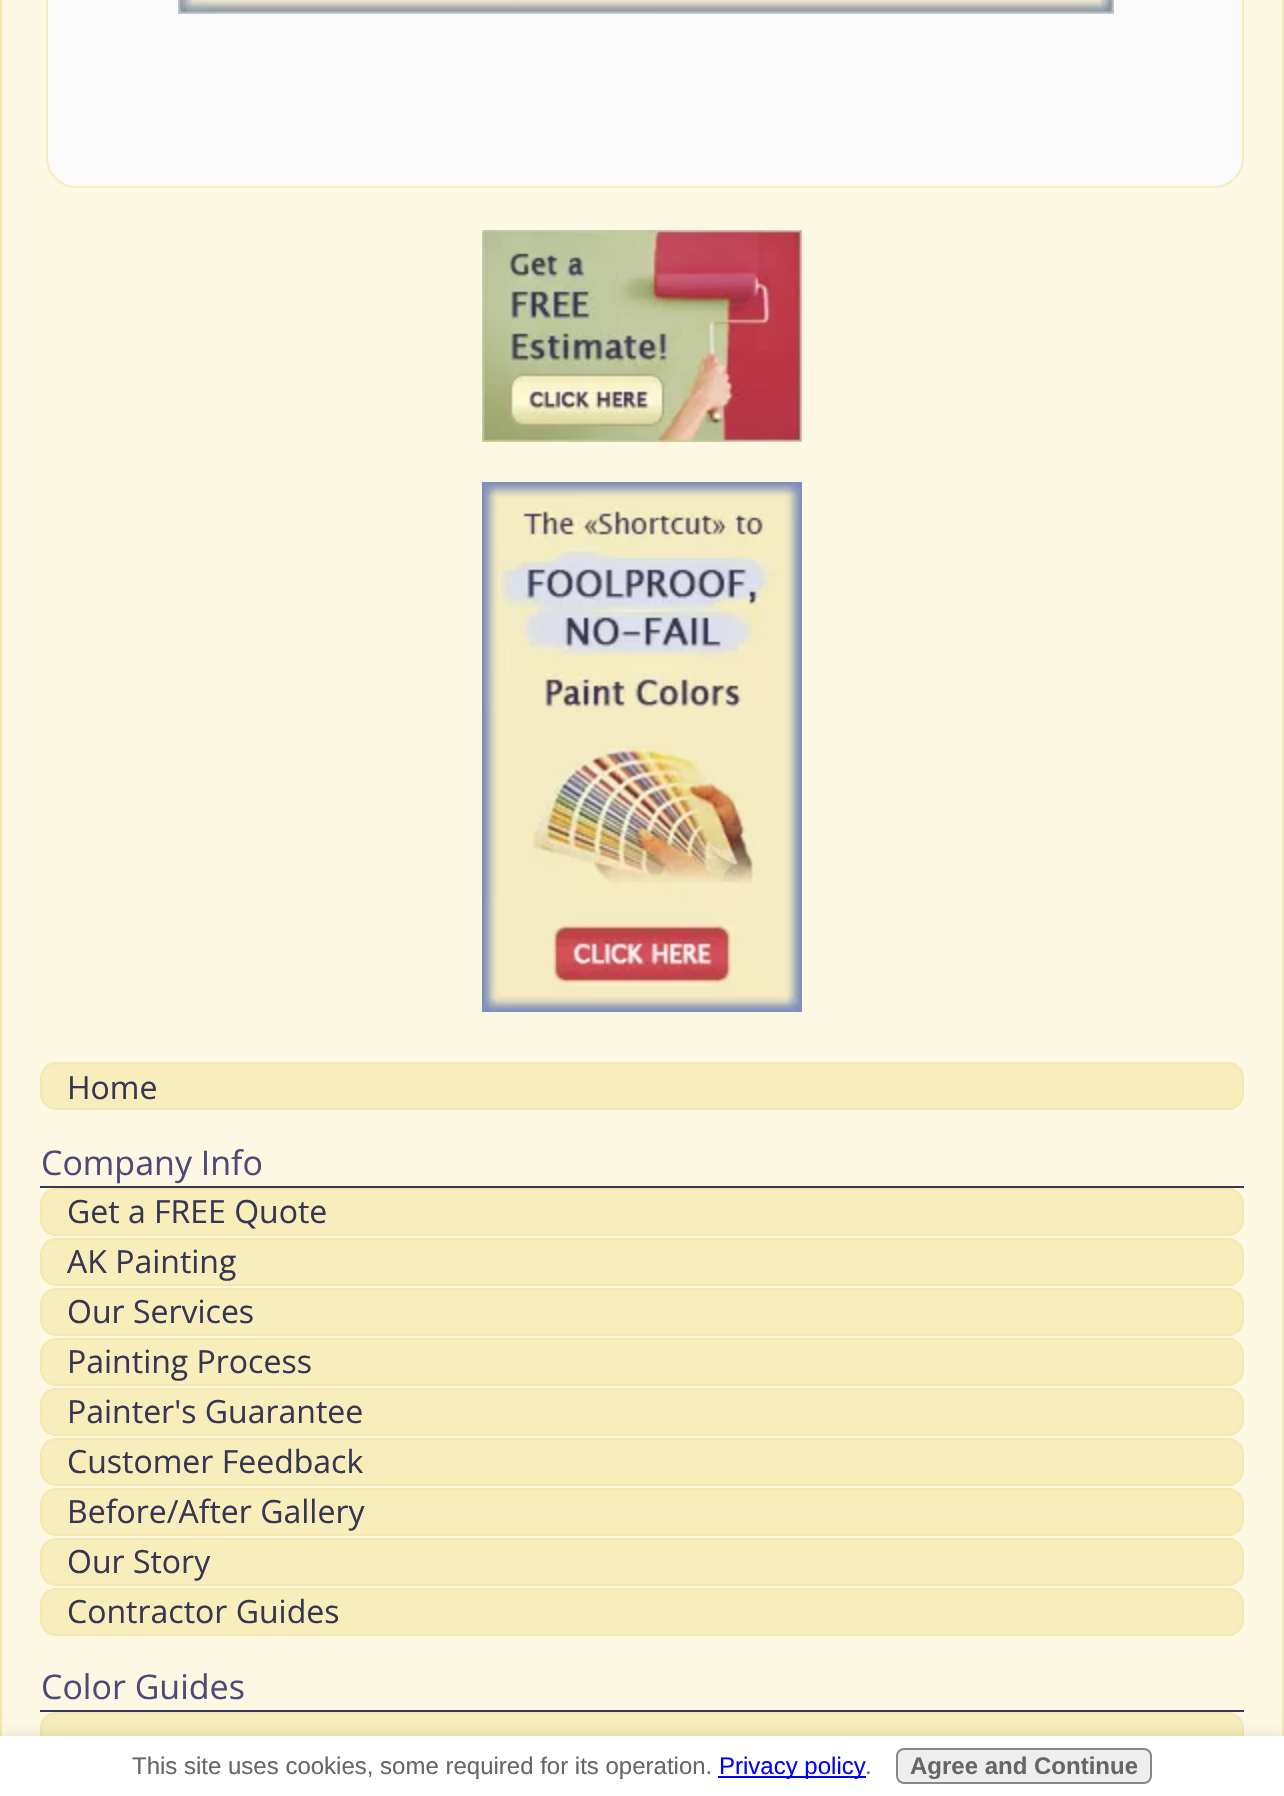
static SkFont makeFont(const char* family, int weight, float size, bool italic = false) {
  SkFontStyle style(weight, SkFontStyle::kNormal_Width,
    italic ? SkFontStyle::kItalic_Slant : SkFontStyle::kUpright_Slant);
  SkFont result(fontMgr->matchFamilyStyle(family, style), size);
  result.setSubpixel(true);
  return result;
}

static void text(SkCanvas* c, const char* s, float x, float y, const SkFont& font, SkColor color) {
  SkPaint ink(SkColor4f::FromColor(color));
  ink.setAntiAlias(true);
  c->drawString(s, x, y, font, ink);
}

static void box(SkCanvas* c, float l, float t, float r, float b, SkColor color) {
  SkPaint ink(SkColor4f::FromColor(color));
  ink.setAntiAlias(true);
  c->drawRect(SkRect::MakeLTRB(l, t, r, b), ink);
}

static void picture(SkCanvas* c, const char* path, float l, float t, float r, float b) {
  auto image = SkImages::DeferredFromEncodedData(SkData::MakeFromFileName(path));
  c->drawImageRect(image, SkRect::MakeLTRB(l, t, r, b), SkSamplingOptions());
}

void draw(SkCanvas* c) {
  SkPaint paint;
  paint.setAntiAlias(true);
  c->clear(0xfffcf8e3);
  paint.setStyle(SkPaint::kStroke_Style);
  paint.setStrokeWidth(2);
  paint.setColor(0xfff2e8b0);
  c->drawRect(SkRect::MakeLTRB(1, -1, 1283, 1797), paint);
  paint.setStyle(SkPaint::kFill_Style);
  paint.setColor(0xfffafafa);
  c->drawRoundRect(SkRect::MakeLTRB(47, -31, 1243, 187), 29, 29, paint);
  paint.setStyle(SkPaint::kStroke_Style);
  paint.setColor(0xfff5edc1);
  c->drawRoundRect(SkRect::MakeLTRB(47, -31, 1243, 187), 29, 29, paint);
  picture(c, "img_01.png", 178, 0, 1114, 14);
  picture(c, "img_02.png", 482, 230, 802, 442);
  picture(c, "img_03.png", 482, 482, 802, 1012);
  paint.setStyle(SkPaint::kFill_Style);
  paint.setColor(0xfff7eebc);
  c->drawRoundRect(SkRect::MakeLTRB(41, 1063, 1243, 1109), 15, 15, paint);
  paint.setStyle(SkPaint::kStroke_Style);
  paint.setColor(0xfff2e8b0);
  c->drawRoundRect(SkRect::MakeLTRB(41, 1063, 1243, 1109), 15, 15, paint);
  SkFont face1 = makeFont("Open Sans", 400, 32);
  text(c, "Home", 67, 1099, face1, 0xff383653);
  box(c, 40, 1186, 1244, 1188, 0xff383653);
  SkFont face2 = makeFont("Open Sans", 400, 34);
  text(c, "Company Info", 41, 1175, face2, 0xff4f4978);
  paint.setStyle(SkPaint::kFill_Style);
  paint.setColor(0xfff7eebc);
  c->drawRoundRect(SkRect::MakeLTRB(41, 1189, 1243, 1235), 15, 15, paint);
  paint.setStyle(SkPaint::kStroke_Style);
  paint.setColor(0xfff2e8b0);
  c->drawRoundRect(SkRect::MakeLTRB(41, 1189, 1243, 1235), 15, 15, paint);
  text(c, "Get a FREE Quote", 67, 1223, face1, 0xff383653);
  paint.setStyle(SkPaint::kFill_Style);
  paint.setColor(0xfff7eebc);
  c->drawRoundRect(SkRect::MakeLTRB(41, 1239, 1243, 1285), 15, 15, paint);
  paint.setStyle(SkPaint::kStroke_Style);
  paint.setColor(0xfff2e8b0);
  c->drawRoundRect(SkRect::MakeLTRB(41, 1239, 1243, 1285), 15, 15, paint);
  text(c, "AK Painting", 67, 1273, face1, 0xff383653);
  paint.setStyle(SkPaint::kFill_Style);
  paint.setColor(0xfff7eebc);
  c->drawRoundRect(SkRect::MakeLTRB(41, 1289, 1243, 1335), 15, 15, paint);
  paint.setStyle(SkPaint::kStroke_Style);
  paint.setColor(0xfff2e8b0);
  c->drawRoundRect(SkRect::MakeLTRB(41, 1289, 1243, 1335), 15, 15, paint);
  text(c, "Our Services", 67, 1323, face1, 0xff383653);
  paint.setStyle(SkPaint::kFill_Style);
  paint.setColor(0xfff7eebc);
  c->drawRoundRect(SkRect::MakeLTRB(41, 1339, 1243, 1385), 15, 15, paint);
  paint.setStyle(SkPaint::kStroke_Style);
  paint.setColor(0xfff2e8b0);
  c->drawRoundRect(SkRect::MakeLTRB(41, 1339, 1243, 1385), 15, 15, paint);
  text(c, "Painting Process", 67, 1373, face1, 0xff383653);
  paint.setStyle(SkPaint::kFill_Style);
  paint.setColor(0xfff7eebc);
  c->drawRoundRect(SkRect::MakeLTRB(41, 1389, 1243, 1435), 15, 15, paint);
  paint.setStyle(SkPaint::kStroke_Style);
  paint.setColor(0xfff2e8b0);
  c->drawRoundRect(SkRect::MakeLTRB(41, 1389, 1243, 1435), 15, 15, paint);
  text(c, "Painter's Guarantee", 67, 1423, face1, 0xff383653);
  paint.setStyle(SkPaint::kFill_Style);
  paint.setColor(0xfff7eebc);
  c->drawRoundRect(SkRect::MakeLTRB(41, 1439, 1243, 1485), 15, 15, paint);
  paint.setStyle(SkPaint::kStroke_Style);
  paint.setColor(0xfff2e8b0);
  c->drawRoundRect(SkRect::MakeLTRB(41, 1439, 1243, 1485), 15, 15, paint);
  text(c, "Customer Feedback", 67, 1473, face1, 0xff383653);
  paint.setStyle(SkPaint::kFill_Style);
  paint.setColor(0xfff7eebc);
  c->drawRoundRect(SkRect::MakeLTRB(41, 1489, 1243, 1535), 15, 15, paint);
  paint.setStyle(SkPaint::kStroke_Style);
  paint.setColor(0xfff2e8b0);
  c->drawRoundRect(SkRect::MakeLTRB(41, 1489, 1243, 1535), 15, 15, paint);
  text(c, "Before/After Gallery", 67, 1523, face1, 0xff383653);
  paint.setStyle(SkPaint::kFill_Style);
  paint.setColor(0xfff7eebc);
  c->drawRoundRect(SkRect::MakeLTRB(41, 1539, 1243, 1585), 15, 15, paint);
  paint.setStyle(SkPaint::kStroke_Style);
  paint.setColor(0xfff2e8b0);
  c->drawRoundRect(SkRect::MakeLTRB(41, 1539, 1243, 1585), 15, 15, paint);
  text(c, "Our Story", 67, 1573, face1, 0xff383653);
  paint.setStyle(SkPaint::kFill_Style);
  paint.setColor(0xfff7eebc);
  c->drawRoundRect(SkRect::MakeLTRB(41, 1589, 1243, 1635), 15, 15, paint);
  paint.setStyle(SkPaint::kStroke_Style);
  paint.setColor(0xfff2e8b0);
  c->drawRoundRect(SkRect::MakeLTRB(41, 1589, 1243, 1635), 15, 15, paint);
  text(c, "Contractor Guides", 67, 1623, face1, 0xff383653);
  box(c, 40, 1710, 1244, 1712, 0xff383653);
  text(c, "Color Guides", 41, 1699, face2, 0xff4f4978);
  paint.setStyle(SkPaint::kFill_Style);
  paint.setColor(0xfff7eebc);
  c->drawRoundRect(SkRect::MakeLTRB(41, 1713, 1243, 1759), 15, 15, paint);
  paint.setStyle(SkPaint::kStroke_Style);
  paint.setColor(0xfff2e8b0);
  c->drawRoundRect(SkRect::MakeLTRB(41, 1713, 1243, 1759), 15, 15, paint);
  paint.setStyle(SkPaint::kFill_Style);
  paint.setColor(0x33000000);
  paint.setMaskFilter(SkMaskFilter::MakeBlur(kNormal_SkBlurStyle, 10));
  c->drawRect(SkRect::MakeLTRB(-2, 1742, 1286, 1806), paint);
  paint.setMaskFilter(nullptr);
  box(c, 0, 1736, 1284, 1796, 0xffffffff);
  SkFont face3 = makeFont("Liberation Sans", 400, 24);
  text(c, "This site uses cookies, some required for its operation.", 132, 1774, face3, 0xff666666);
  box(c, 718, 1776, 866, 1778, 0xff0000ff);
  text(c, "Privacy policy", 719, 1774, face3, 0xff0000ff);
  text(c, ".", 865, 1774, face3, 0xff666666);
  paint.setColor(0xffeeeeee);
  c->drawRoundRect(SkRect::MakeLTRB(897, 1749, 1151, 1783), 7, 7, paint);
  paint.setStyle(SkPaint::kStroke_Style);
  paint.setColor(0xff888888);
  c->drawRoundRect(SkRect::MakeLTRB(897, 1749, 1151, 1783), 7, 7, paint);
  SkFont face4 = makeFont("Liberation Sans", 700, 24);
  text(c, "Agree and Continue", 910, 1774, face4, 0xff666666);
}
